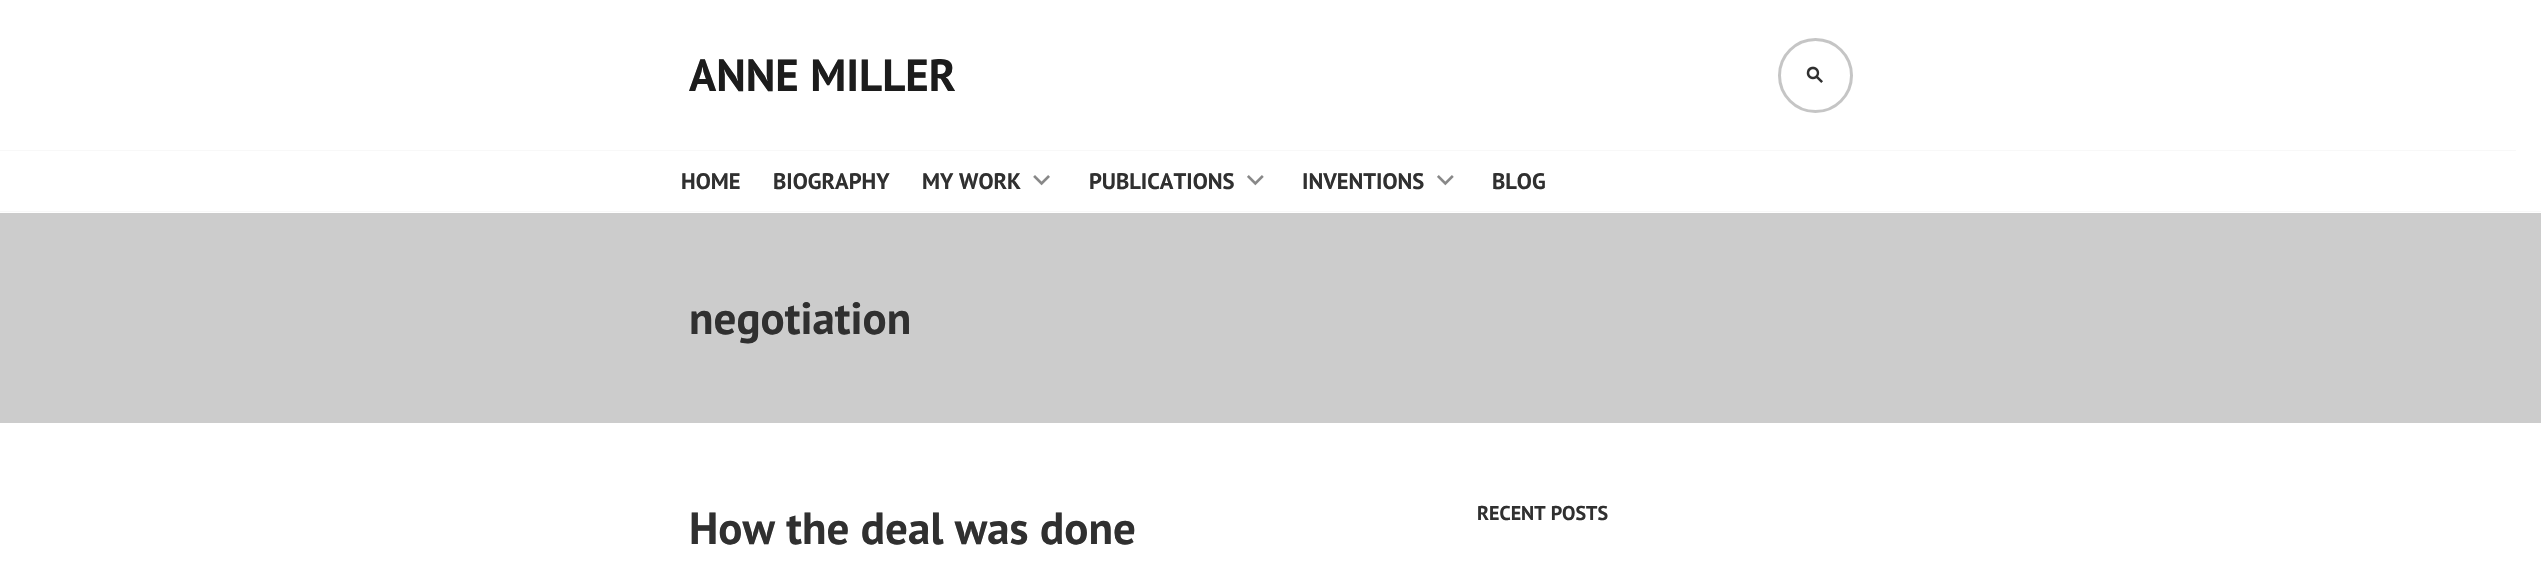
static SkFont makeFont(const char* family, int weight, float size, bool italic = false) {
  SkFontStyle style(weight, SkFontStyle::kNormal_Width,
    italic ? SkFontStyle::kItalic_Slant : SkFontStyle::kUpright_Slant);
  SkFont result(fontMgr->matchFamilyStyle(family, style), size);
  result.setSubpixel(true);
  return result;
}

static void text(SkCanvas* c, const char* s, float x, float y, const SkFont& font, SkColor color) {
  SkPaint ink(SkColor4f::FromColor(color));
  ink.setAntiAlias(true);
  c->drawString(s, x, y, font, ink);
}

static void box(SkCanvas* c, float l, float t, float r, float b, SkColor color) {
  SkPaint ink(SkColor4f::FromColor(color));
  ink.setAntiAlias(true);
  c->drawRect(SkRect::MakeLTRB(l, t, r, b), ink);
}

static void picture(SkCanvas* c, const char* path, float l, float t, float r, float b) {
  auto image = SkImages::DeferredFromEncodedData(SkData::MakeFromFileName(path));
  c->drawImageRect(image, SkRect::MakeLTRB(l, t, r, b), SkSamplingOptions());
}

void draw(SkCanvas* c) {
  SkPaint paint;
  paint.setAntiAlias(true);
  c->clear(0xffffffff);
  box(c, 0, 211, 2541, 212, 0xfff8f8f8);
  SkFont face1 = makeFont("PT Sans", 700, 45);
  text(c, "ANNE MILLER", 689, 91, face1, 0xff1c1c1c);
  paint.setStyle(SkPaint::kStroke_Style);
  paint.setStrokeWidth(3);
  paint.setColor(0xffc5c5c5);
  c->drawCircle(1815.5f, 75.5f, 36, paint);
  picture(c, "img_01.png", 1806, 66, 1823, 83);
  box(c, 0, 150, 2516, 151, 0xfff8f8f8);
  SkFont face2 = makeFont("PT Sans", 700, 22.5f);
  text(c, "HOME", 681, 189, face2, 0xff303030);
  text(c, "BIOGRAPHY", 773, 189, face2, 0xff303030);
  text(c, "MY WORK", 922, 189, face2, 0xff303030);
  picture(c, "img_02.png", 1033, 175, 1050, 186);
  text(c, "PUBLICATIONS", 1089, 189, face2, 0xff303030);
  picture(c, "img_03.png", 1247, 175, 1264, 186);
  text(c, "INVENTIONS", 1302, 189, face2, 0xff303030);
  picture(c, "img_03.png", 1437, 175, 1454, 186);
  text(c, "BLOG", 1492, 189, face2, 0xff303030);
  box(c, 0, 213, 2541, 423, 0xffcccccc);
  text(c, "negotiation", 689, 334, face1, 0xff303030);
  text(c, "How the deal was done", 689, 544, face1, 0xff303030);
  SkFont face3 = makeFont("PT Sans", 700, 20);
  text(c, "RECENT POSTS", 1477, 520, face3, 0xff303030);
}
